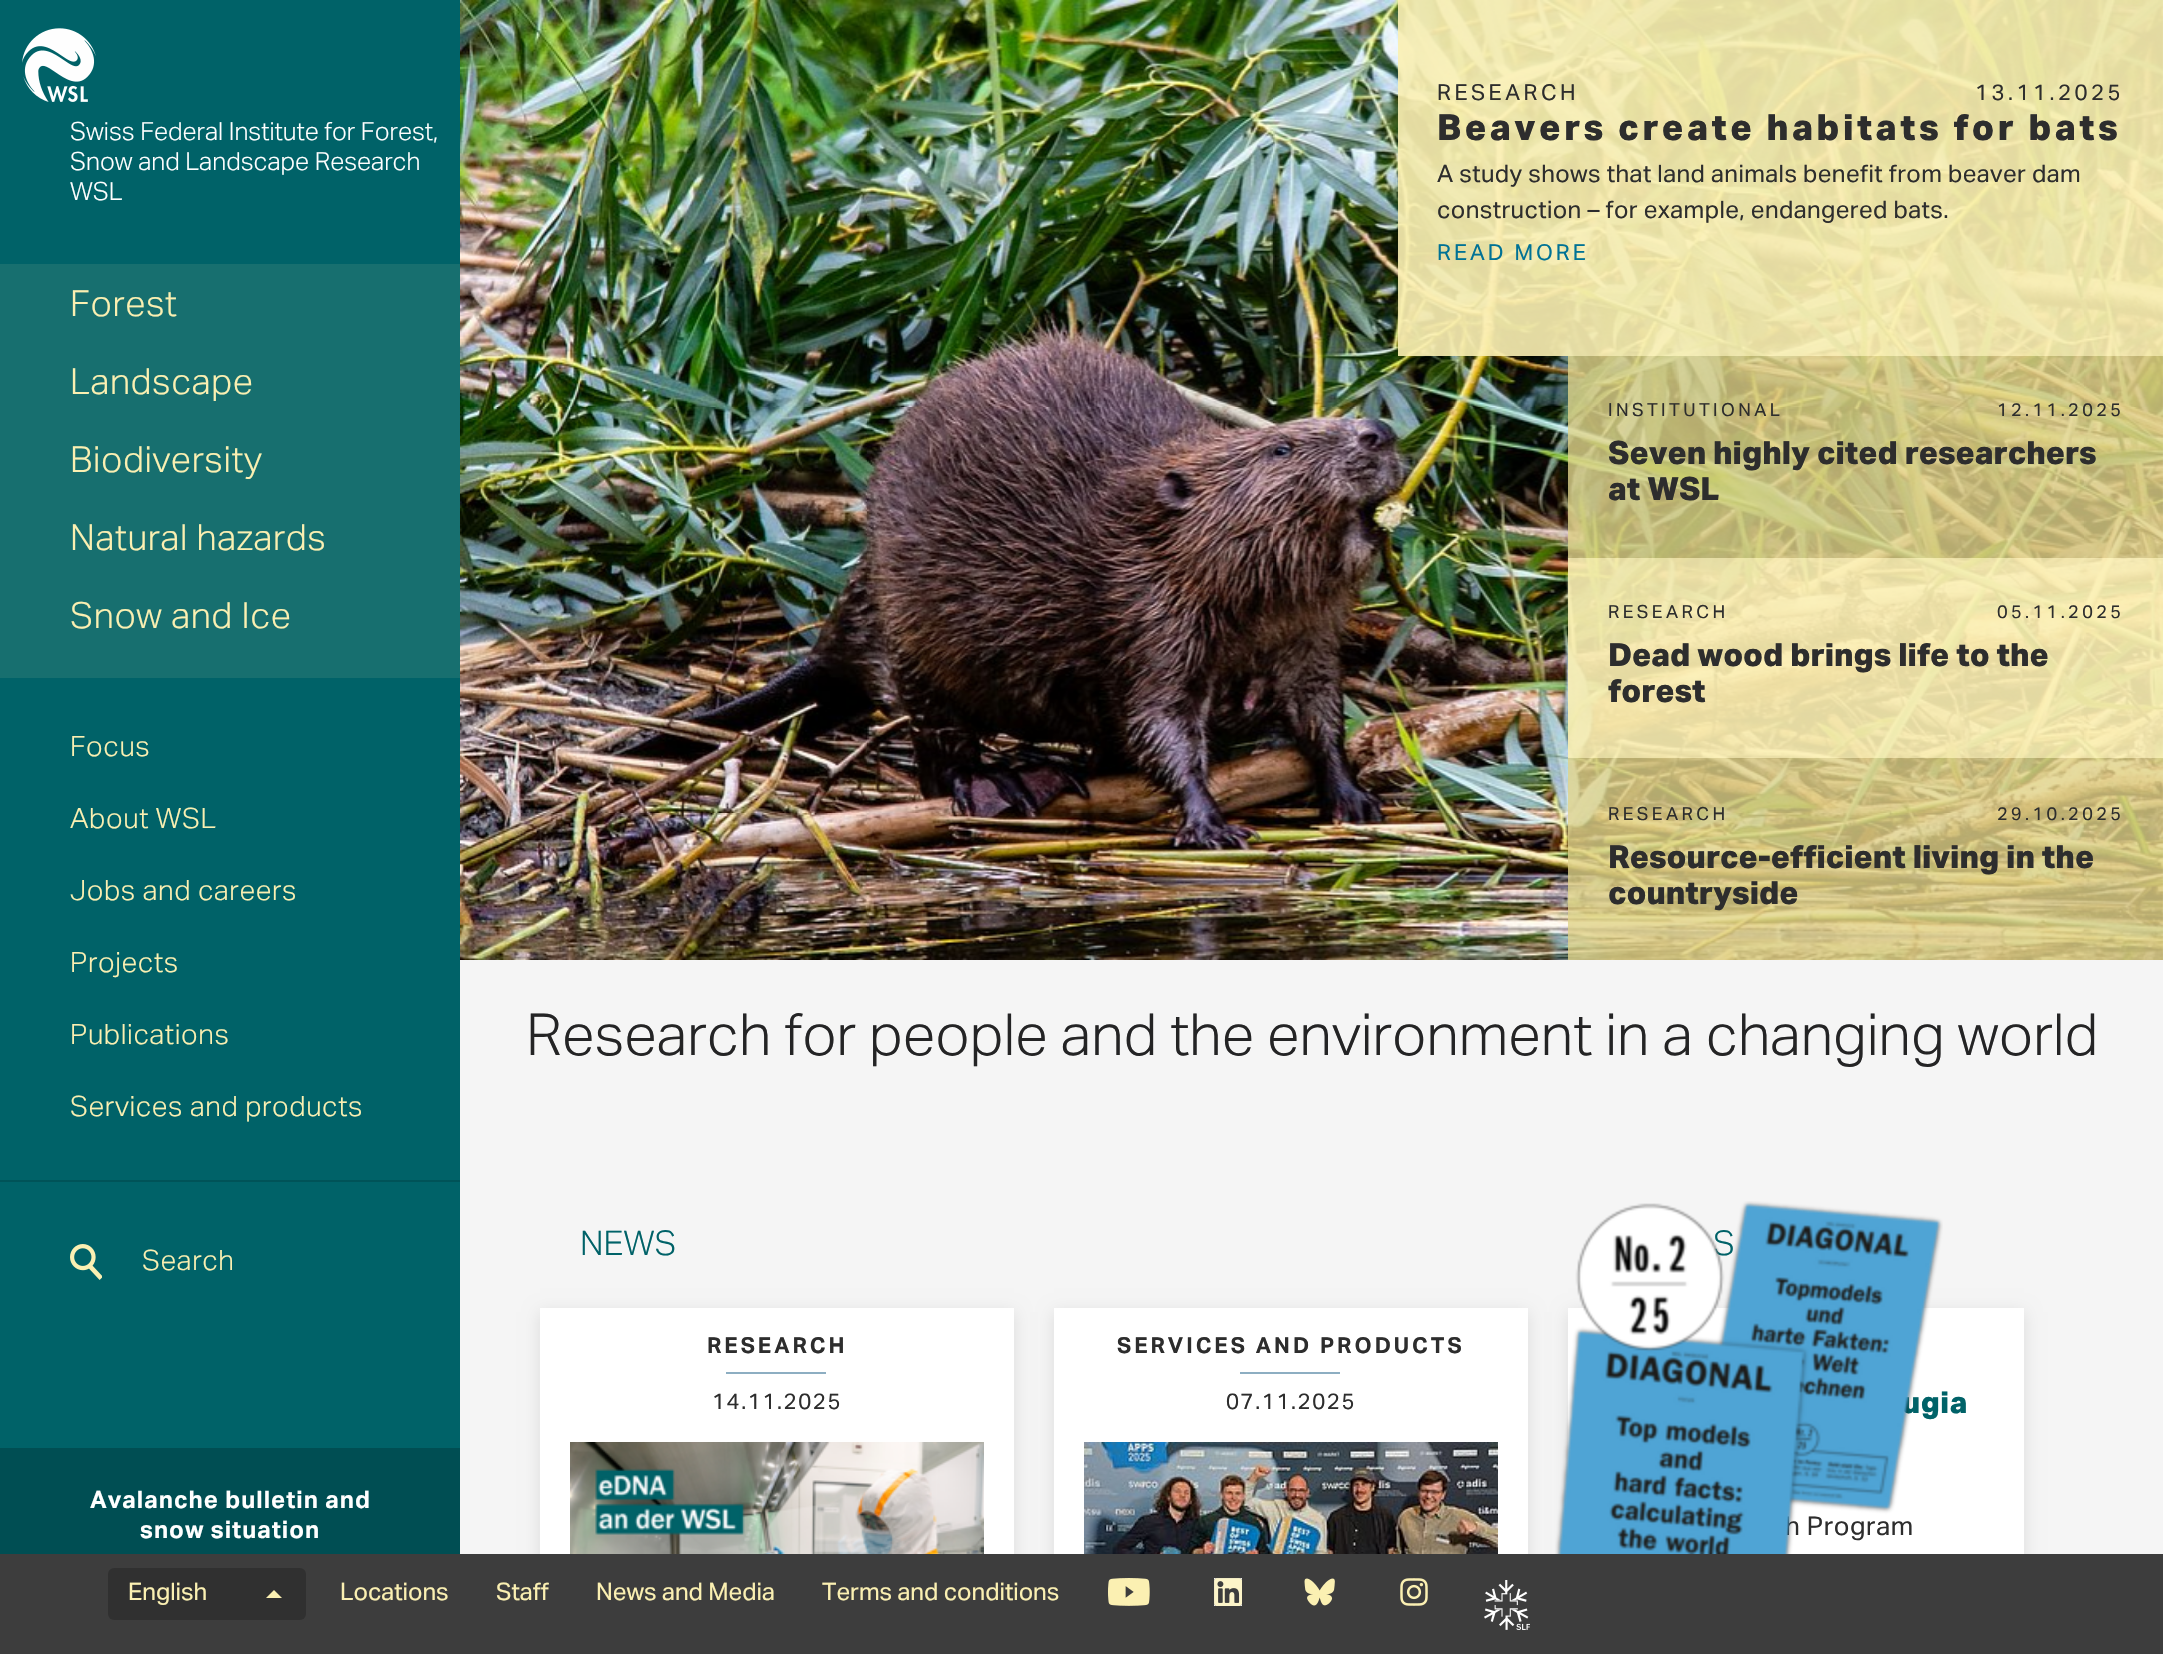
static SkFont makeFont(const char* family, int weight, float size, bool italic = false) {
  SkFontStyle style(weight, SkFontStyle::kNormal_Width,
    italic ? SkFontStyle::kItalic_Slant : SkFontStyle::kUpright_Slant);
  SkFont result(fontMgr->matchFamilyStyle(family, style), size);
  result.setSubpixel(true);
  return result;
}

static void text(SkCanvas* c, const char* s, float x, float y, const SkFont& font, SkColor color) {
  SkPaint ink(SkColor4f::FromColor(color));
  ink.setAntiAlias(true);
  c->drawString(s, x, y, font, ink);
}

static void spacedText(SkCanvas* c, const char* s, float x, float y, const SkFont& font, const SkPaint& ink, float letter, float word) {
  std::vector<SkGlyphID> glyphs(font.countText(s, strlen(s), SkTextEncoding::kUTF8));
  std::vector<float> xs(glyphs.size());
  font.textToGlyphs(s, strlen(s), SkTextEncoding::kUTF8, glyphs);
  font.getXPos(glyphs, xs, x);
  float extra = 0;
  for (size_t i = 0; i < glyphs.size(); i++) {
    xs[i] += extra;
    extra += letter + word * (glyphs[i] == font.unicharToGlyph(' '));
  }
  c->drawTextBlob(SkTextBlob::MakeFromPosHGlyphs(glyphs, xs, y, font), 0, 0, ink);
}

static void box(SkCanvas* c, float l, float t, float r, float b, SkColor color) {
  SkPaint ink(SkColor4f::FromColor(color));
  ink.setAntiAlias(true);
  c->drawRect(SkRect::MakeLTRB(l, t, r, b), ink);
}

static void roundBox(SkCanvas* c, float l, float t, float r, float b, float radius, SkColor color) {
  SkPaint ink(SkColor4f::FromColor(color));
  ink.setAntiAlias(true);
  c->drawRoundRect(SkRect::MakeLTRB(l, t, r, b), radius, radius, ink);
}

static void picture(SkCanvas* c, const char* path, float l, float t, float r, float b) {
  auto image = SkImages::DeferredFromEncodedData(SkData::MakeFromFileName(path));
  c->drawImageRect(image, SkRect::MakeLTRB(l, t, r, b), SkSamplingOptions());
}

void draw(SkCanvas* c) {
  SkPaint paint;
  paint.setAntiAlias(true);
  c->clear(0xfff5f5f5);
  box(c, 0, 0, 460, 1448, 0xff006268);
  picture(c, "img_01.png", 22, 28, 96, 102);
  SkFont face1 = makeFont("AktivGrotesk", 400, 25);
  text(c, "Swiss Federal Institute for Forest,", 70, 140, face1, 0xffffffff);
  text(c, "Snow and Landscape Research", 70, 170, face1, 0xffffffff);
  text(c, "WSL", 70, 200, face1, 0xffffffff);
  box(c, 0, 264, 460, 678, 0xff176f6f);
  SkFont face2 = makeFont("AktivGrotesk", 400, 36);
  paint.setColor(0xfffbf0b2);
  spacedText(c, "Forest", 70, 316, face2, paint, 0.6f, 0);
  spacedText(c, "Landscape", 70, 394, face2, paint, 0.6f, 0);
  spacedText(c, "Biodiversity", 70, 472, face2, paint, 0.6f, 0);
  spacedText(c, "Natural hazards", 70, 550, face2, paint, 0.6f, 0);
  spacedText(c, "Snow and Ice", 70, 628, face2, paint, 0.6f, 0);
  box(c, 0, 1180, 460, 1182, 0xff005358);
  SkFont face3 = makeFont("AktivGrotesk", 400, 28);
  spacedText(c, "Focus", 70, 756, face3, paint, 0.6f, 0);
  spacedText(c, "About WSL", 70, 828, face3, paint, 0.6f, 0);
  spacedText(c, "Jobs and careers", 70, 900, face3, paint, 0.6f, 0);
  spacedText(c, "Projects", 70, 972, face3, paint, 0.6f, 0);
  spacedText(c, "Publications", 70, 1044, face3, paint, 0.6f, 0);
  spacedText(c, "Services and products", 70, 1116, face3, paint, 0.6f, 0);
  picture(c, "img_02.png", 70, 1244, 102, 1280);
  spacedText(c, "Search", 142, 1270, face3, paint, 0.6f, 0);
  box(c, 0, 1448, 460, 1554, 0xff004e53);
  SkFont face4 = makeFont("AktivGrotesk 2", 400, 24);
  paint.setColor(0xffffffff);
  spacedText(c, "Avalanche bulletin and", 90, 1508, face4, paint, 1, 0);
  spacedText(c, "snow situation", 140, 1538, face4, paint, 1, 0);
  picture(c, "img_03.png", 460, 0, 2163, 960);
  box(c, 1398, 0, 2163, 356, 0xe6fbf0b2);
  SkFont face5 = makeFont("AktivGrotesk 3", 400, 22);
  paint.setColor(0xff2d2d2d);
  spacedText(c, "RESEARCH", 1437, 100, face5, paint, 3.5f, 0);
  spacedText(c, "13.11.2025", 1975, 100, face5, paint, 3.5f, 0);
  SkFont face6 = makeFont("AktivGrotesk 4", 400, 36);
  spacedText(c, "Beavers create habitats for bats", 1437, 140, face6, paint, 3.5f, 0);
  SkFont face7 = makeFont("AktivGrotesk 3", 400, 24);
  spacedText(c, "A study shows that land animals benefit from beaver dam", 1437, 182, face7, paint, 0.4f, 0);
  spacedText(c, "construction – for example, endangered bats.", 1437, 218, face7, paint, 0.4f, 0);
  paint.setColor(0xff007295);
  spacedText(c, "READ MORE", 1437, 260, face5, paint, 3, 0);
  box(c, 1568, 356, 2163, 558, 0xcce0d389);
  SkFont face8 = makeFont("AktivGrotesk 3", 400, 18);
  paint.setColor(0xff2d2d2d);
  spacedText(c, "INSTITUTIONAL", 1608, 416, face8, paint, 3.4f, 0);
  spacedText(c, "12.11.2025", 1997, 416, face8, paint, 3.4f, 0);
  SkFont face9 = makeFont("AktivGrotesk 4", 400, 32);
  text(c, "Seven highly cited researchers", 1608, 464, face9, 0xff2d2d2d);
  text(c, "at WSL", 1608, 500, face9, 0xff2d2d2d);
  box(c, 1568, 558, 2163, 758, 0xe6fbf0b2);
  spacedText(c, "RESEARCH", 1608, 618, face8, paint, 3.4f, 0);
  spacedText(c, "05.11.2025", 1997, 618, face8, paint, 3.4f, 0);
  text(c, "Dead wood brings life to the", 1608, 666, face9, 0xff2d2d2d);
  text(c, "forest", 1608, 702, face9, 0xff2d2d2d);
  box(c, 1568, 758, 2163, 960, 0xcce0d389);
  spacedText(c, "RESEARCH", 1608, 820, face8, paint, 3.4f, 0);
  spacedText(c, "29.10.2025", 1997, 820, face8, paint, 3.4f, 0);
  text(c, "Resource-efficient living in the", 1608, 868, face9, 0xff2d2d2d);
  text(c, "countryside", 1608, 904, face9, 0xff2d2d2d);
  SkFont face10 = makeFont("AktivGrotesk", 400, 58);
  text(c, "Research for people and the environment in a changing world", 526, 1055, face10, 0xff242425);
  SkFont face11 = makeFont("AktivGrotesk", 400, 34);
  text(c, "NEWS", 580, 1255, face11, 0xff006268);
  paint.setColor(0x1a000000);
  paint.setMaskFilter(SkMaskFilter::MakeBlur(kNormal_SkBlurStyle, 8));
  c->drawRect(SkRect::MakeLTRB(540, 1312, 1014, 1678), paint);
  paint.setMaskFilter(nullptr);
  box(c, 540, 1308, 1014, 1554, 0xffffffff);
  SkFont face12 = makeFont("AktivGrotesk 2", 400, 22);
  paint.setColor(0xff2d2d2d);
  spacedText(c, "RESEARCH", 707, 1353, face12, paint, 3, 0);
  box(c, 726, 1372, 826, 1374, 0xff8daec2);
  spacedText(c, "14.11.2025", 712, 1409, face5, paint, 1.6f, 0);
  picture(c, "img_04.png", 570, 1442, 984, 1554);
  paint.setColor(0x1a000000);
  paint.setMaskFilter(SkMaskFilter::MakeBlur(kNormal_SkBlurStyle, 8));
  c->drawRect(SkRect::MakeLTRB(1054, 1312, 1528, 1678), paint);
  paint.setMaskFilter(nullptr);
  box(c, 1054, 1308, 1528, 1554, 0xffffffff);
  paint.setColor(0xff2d2d2d);
  spacedText(c, "SERVICES AND PRODUCTS", 1117, 1353, face12, paint, 3, 0);
  box(c, 1240, 1372, 1340, 1374, 0xff8daec2);
  spacedText(c, "07.11.2025", 1226, 1409, face5, paint, 1.6f, 0);
  picture(c, "img_05.png", 1084, 1442, 1498, 1554);
  text(c, "S", 1713, 1255, face11, 0xff006268);
  paint.setColor(0x1a000000);
  paint.setMaskFilter(SkMaskFilter::MakeBlur(kNormal_SkBlurStyle, 8));
  c->drawRect(SkRect::MakeLTRB(1568, 1312, 2024, 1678), paint);
  paint.setMaskFilter(nullptr);
  box(c, 1568, 1308, 2024, 1554, 0xffffffff);
  SkFont face13 = makeFont("AktivGrotesk 4", 400, 30);
  paint.setColor(0xff006268);
  spacedText(c, "ugia", 1902, 1413, face13, paint, 0.6f, 0);
  SkFont face14 = makeFont("AktivGrotesk 3", 400, 26);
  paint.setColor(0xff2d2d2d);
  spacedText(c, "h Program", 1785, 1535, face14, paint, 0.6f, 0);
  box(c, 0, 1554, 2163, 1654, 0xff3d3d3d);
  picture(c, "img_06.png", 1555, 1201, 1943, 1554);
  roundBox(c, 108, 1568, 306, 1620, 6, 0xff303030);
  text(c, "English", 128, 1600, face7, 0xfffbf0b2);
  paint.setColor(0xfffbf0b2);
  c->drawPath(SkPathBuilder().moveTo(282, 1598).lineTo(266, 1598).lineTo(274, 1590).close().detach(), paint);
  text(c, "Locations", 340, 1600, face7, 0xfffbf0b2);
  text(c, "Staff", 496, 1600, face7, 0xfffbf0b2);
  text(c, "News and Media", 596, 1600, face7, 0xfffbf0b2);
  text(c, "Terms and conditions", 822, 1600, face7, 0xfffbf0b2);
  picture(c, "img_07.png", 1108, 1578, 1150, 1606);
  picture(c, "img_08.png", 1214, 1578, 1242, 1606);
  picture(c, "img_09.png", 1304, 1578, 1335, 1606);
  picture(c, "img_10.png", 1400, 1578, 1428, 1606);
  picture(c, "img_11.png", 1484, 1580, 1530, 1630);
}
